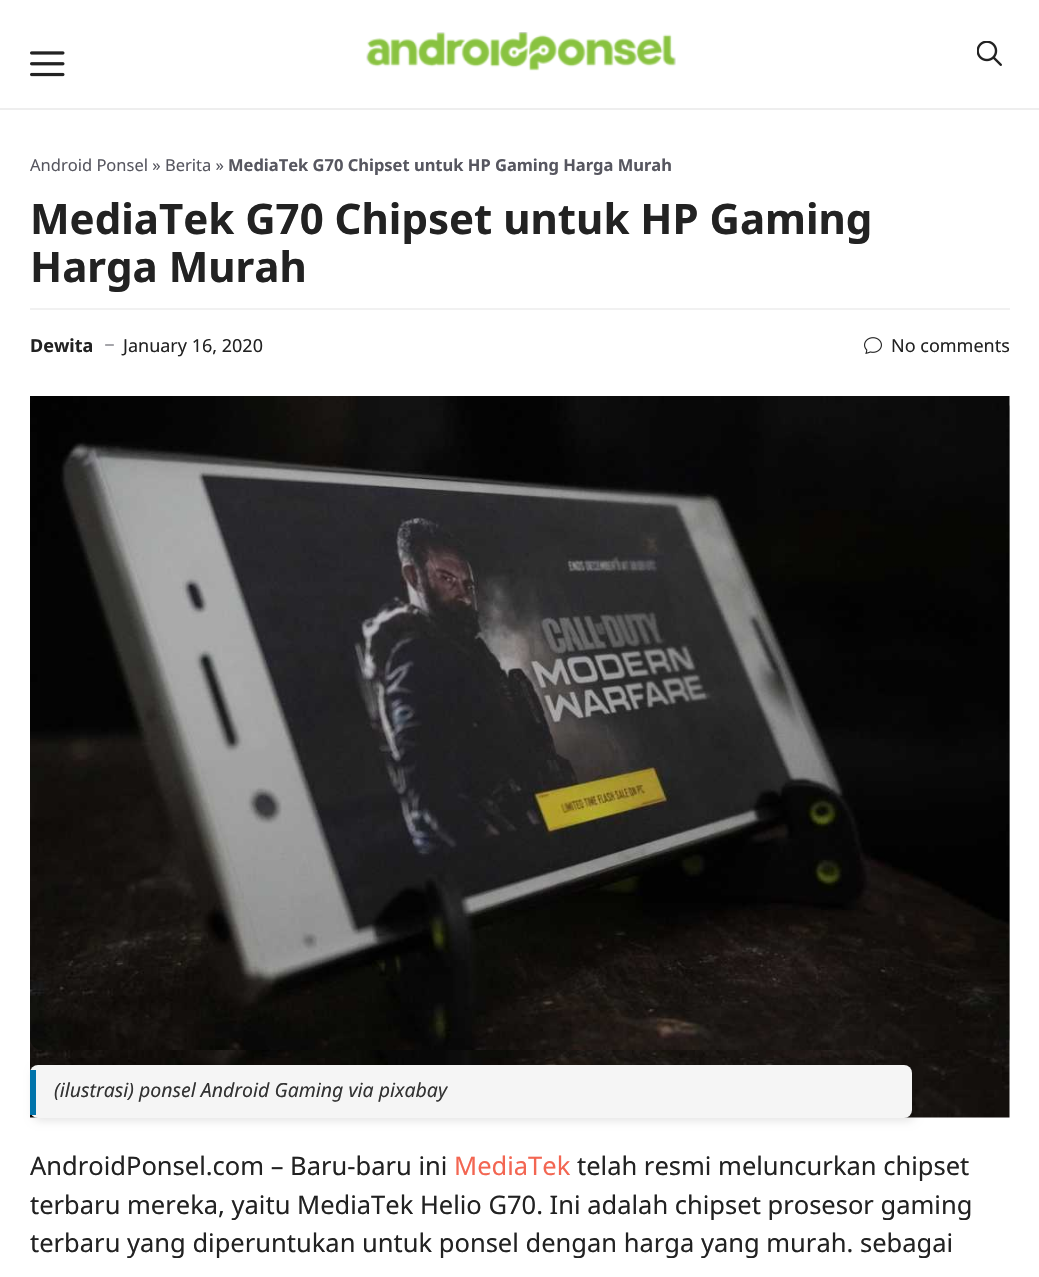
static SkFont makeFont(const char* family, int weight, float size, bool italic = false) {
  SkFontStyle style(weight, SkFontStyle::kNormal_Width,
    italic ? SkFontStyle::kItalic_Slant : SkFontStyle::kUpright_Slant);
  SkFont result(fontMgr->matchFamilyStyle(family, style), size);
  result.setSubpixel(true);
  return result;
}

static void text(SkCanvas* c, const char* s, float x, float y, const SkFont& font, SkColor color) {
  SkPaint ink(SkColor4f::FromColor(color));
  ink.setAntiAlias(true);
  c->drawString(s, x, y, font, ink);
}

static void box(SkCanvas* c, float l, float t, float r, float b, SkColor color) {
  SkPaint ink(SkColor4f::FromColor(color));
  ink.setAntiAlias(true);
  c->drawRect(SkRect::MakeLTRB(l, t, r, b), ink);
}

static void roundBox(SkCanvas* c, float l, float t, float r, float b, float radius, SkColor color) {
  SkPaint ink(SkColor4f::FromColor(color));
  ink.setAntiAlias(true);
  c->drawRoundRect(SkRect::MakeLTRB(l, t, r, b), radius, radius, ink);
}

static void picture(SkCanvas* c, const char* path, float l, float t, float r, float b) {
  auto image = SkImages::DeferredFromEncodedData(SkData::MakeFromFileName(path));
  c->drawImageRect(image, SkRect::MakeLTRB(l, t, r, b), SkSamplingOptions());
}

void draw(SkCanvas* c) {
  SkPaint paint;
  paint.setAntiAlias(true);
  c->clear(0xffffffff);
  box(c, 0, 108, 1039, 110, 0xffeeeeee);
  picture(c, "img_01.png", 366, 32, 676, 71);
  picture(c, "img_02.png", 977, 41, 1002, 66);
  picture(c, "img_03.png", 30, 51, 65, 77);
  SkFont face1 = makeFont("Noto Sans", 400, 16.5f);
  text(c, "Android Ponsel » Berita »", 30, 171, face1, 0xff575760);
  SkFont face2 = makeFont("Noto Sans", 700, 16.5f);
  text(c, "MediaTek G70 Chipset untuk HP Gaming Harga Murah", 228, 171, face2, 0xff575760);
  SkFont face3 = makeFont("Noto Sans", 700, 42);
  text(c, "MediaTek G70 Chipset untuk HP Gaming", 30, 234, face3, 0xff222222);
  text(c, "Harga Murah", 30, 282, face3, 0xff222222);
  box(c, 30, 308, 1010, 310, 0xfff1f1f1);
  SkFont face4 = makeFont("Noto Sans", 700, 18);
  text(c, "Dewita", 30, 352, face4, 0xff222222);
  picture(c, "img_04.png", 105, 344, 114, 346);
  SkFont face5 = makeFont("Noto Sans", 400, 18);
  text(c, "January 16, 2020", 123, 352, face5, 0xff222222);
  picture(c, "img_05.png", 864, 337, 882, 354);
  text(c, "No comments", 891, 352, face5, 0xff222222);
  picture(c, "img_06.png", 30, 396, 1010, 1118);
  picture(c, "img_07.png", 30, 396, 1010, 1050);
  paint.setColor(0x1a000000);
  paint.setMaskFilter(SkMaskFilter::MakeBlur(kNormal_SkBlurStyle, 4));
  c->drawRoundRect(SkRect::MakeLTRB(33, 1068, 915, 1121), 8, 8, paint);
  paint.setMaskFilter(nullptr);
  roundBox(c, 30, 1065, 912, 1118, 8, 0xfff5f5f5);
  box(c, 30, 1070, 36, 1115, 0xff0073aa);
  SkFont face6 = makeFont("Noto Sans", 400, 19.5f, true);
  text(c, "(ilustrasi) ponsel Android Gaming via pixabay", 54, 1097, face6, 0xff333333);
  SkFont face7 = makeFont("Noto Sans", 400, 25.5f);
  text(c, "AndroidPonsel.com – Baru-baru ini", 30, 1175, face7, 0xff222222);
  text(c, "MediaTek", 454, 1175, face7, 0xfff36652);
  text(c, "telah resmi meluncurkan chipset", 577, 1175, face7, 0xff222222);
  text(c, "terbaru mereka, yaitu MediaTek Helio G70. Ini adalah chipset prosesor gaming", 30, 1214, face7, 0xff222222);
  text(c, "terbaru yang diperuntukan untuk ponsel dengan harga yang murah. sebagai", 30, 1252, face7, 0xff222222);
}
